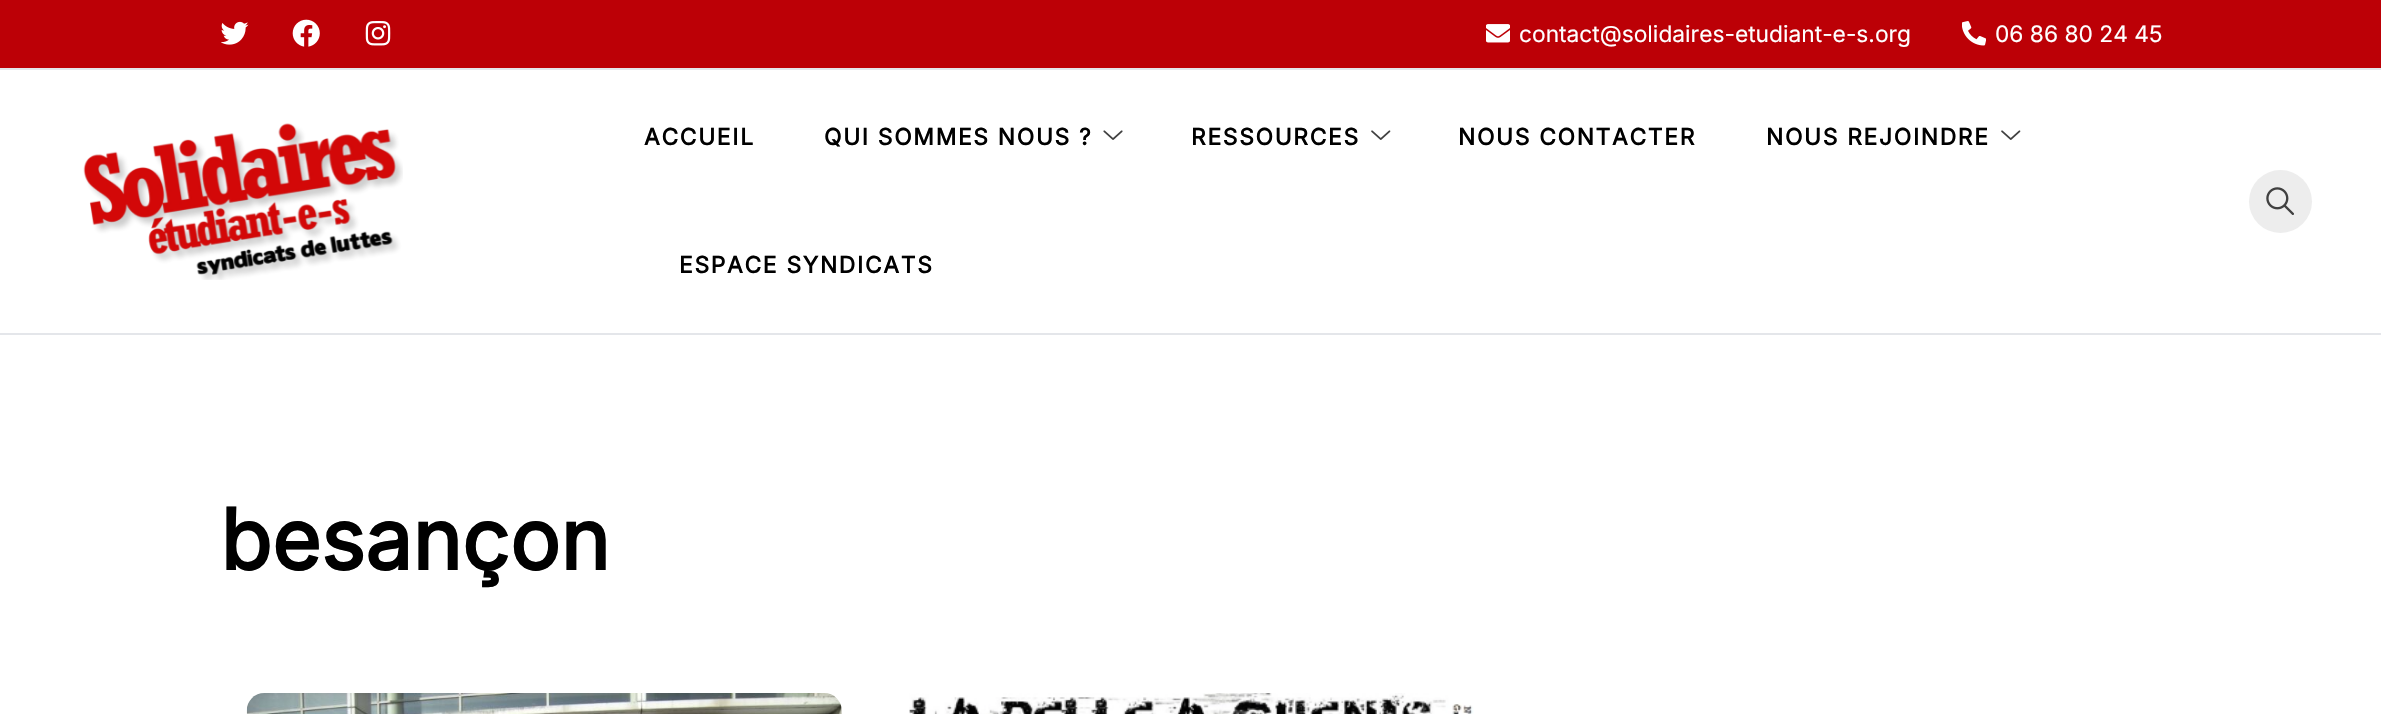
static SkFont makeFont(const char* family, int weight, float size, bool italic = false) {
  SkFontStyle style(weight, SkFontStyle::kNormal_Width,
    italic ? SkFontStyle::kItalic_Slant : SkFontStyle::kUpright_Slant);
  SkFont result(fontMgr->matchFamilyStyle(family, style), size);
  result.setSubpixel(true);
  return result;
}

static void text(SkCanvas* c, const char* s, float x, float y, const SkFont& font, SkColor color) {
  SkPaint ink(SkColor4f::FromColor(color));
  ink.setAntiAlias(true);
  c->drawString(s, x, y, font, ink);
}

static void spacedText(SkCanvas* c, const char* s, float x, float y, const SkFont& font, const SkPaint& ink, float letter, float word) {
  std::vector<SkGlyphID> glyphs(font.countText(s, strlen(s), SkTextEncoding::kUTF8));
  std::vector<float> xs(glyphs.size());
  font.textToGlyphs(s, strlen(s), SkTextEncoding::kUTF8, glyphs);
  font.getXPos(glyphs, xs, x);
  float extra = 0;
  for (size_t i = 0; i < glyphs.size(); i++) {
    xs[i] += extra;
    extra += letter + word * (glyphs[i] == font.unicharToGlyph(' '));
  }
  c->drawTextBlob(SkTextBlob::MakeFromPosHGlyphs(glyphs, xs, y, font), 0, 0, ink);
}

static void box(SkCanvas* c, float l, float t, float r, float b, SkColor color) {
  SkPaint ink(SkColor4f::FromColor(color));
  ink.setAntiAlias(true);
  c->drawRect(SkRect::MakeLTRB(l, t, r, b), ink);
}

static void picture(SkCanvas* c, const char* path, float l, float t, float r, float b) {
  auto image = SkImages::DeferredFromEncodedData(SkData::MakeFromFileName(path));
  c->drawImageRect(image, SkRect::MakeLTRB(l, t, r, b), SkSamplingOptions());
}

void draw(SkCanvas* c) {
  SkPaint paint;
  paint.setAntiAlias(true);
  c->clear(0xffffffff);
  box(c, 0, 0, 2381, 68, 0xffbc0006);
  box(c, 0, 68, 2381, 70, 0xffe4e6ea);
  picture(c, "img_01.png", 221, 21, 249, 45);
  picture(c, "img_02.png", 292, 19, 320, 47);
  picture(c, "img_03.png", 365, 21, 391, 46);
  picture(c, "img_04.png", 1486, 24, 1510, 43);
  SkFont face1 = makeFont("Inter", 400, 22.75f);
  text(c, "contact@solidaires-etudiant-e-s.org", 1519, 42, face1, 0xffffffff);
  picture(c, "img_05.png", 1962, 21, 1986, 46);
  text(c, "06 86 80 24 45", 1995, 42, face1, 0xffffffff);
  box(c, 0, 333, 2381, 335, 0xffe4e6ea);
  picture(c, "img_06.png", 83, 123, 403, 280);
  SkFont face2 = makeFont("Inter", 700, 22.75f);
  paint.setColor(0xff000000);
  spacedText(c, "ACCUEIL", 644, 145, face2, paint, 1.75f, 0);
  spacedText(c, "QUI SOMMES NOUS ?", 824, 145, face2, paint, 1.75f, 0);
  picture(c, "img_07.png", 1103, 130, 1123, 140);
  spacedText(c, "RESSOURCES", 1191, 145, face2, paint, 1.75f, 0);
  picture(c, "img_08.png", 1371, 130, 1391, 140);
  spacedText(c, "NOUS CONTACTER", 1458, 145, face2, paint, 1.75f, 0);
  spacedText(c, "NOUS REJOINDRE", 1766, 145, face2, paint, 1.75f, 0);
  picture(c, "img_08.png", 2001, 130, 2021, 140);
  spacedText(c, "ESPACE SYNDICATS", 679, 273, face2, paint, 1.75f, 0);
  paint.setColor(0xffededed);
  c->drawCircle(2280.5f, 201.5f, 31.5f, paint);
  picture(c, "img_09.png", 2266, 187, 2294, 215);
  SkFont face3 = makeFont("Inter", 700, 84);
  text(c, "besançon", 220, 570, face3, 0xff000000);
  picture(c, "img_10.png", 246, 693, 842, 714);
  picture(c, "img_11.png", 909, 693, 1474, 714);
}
